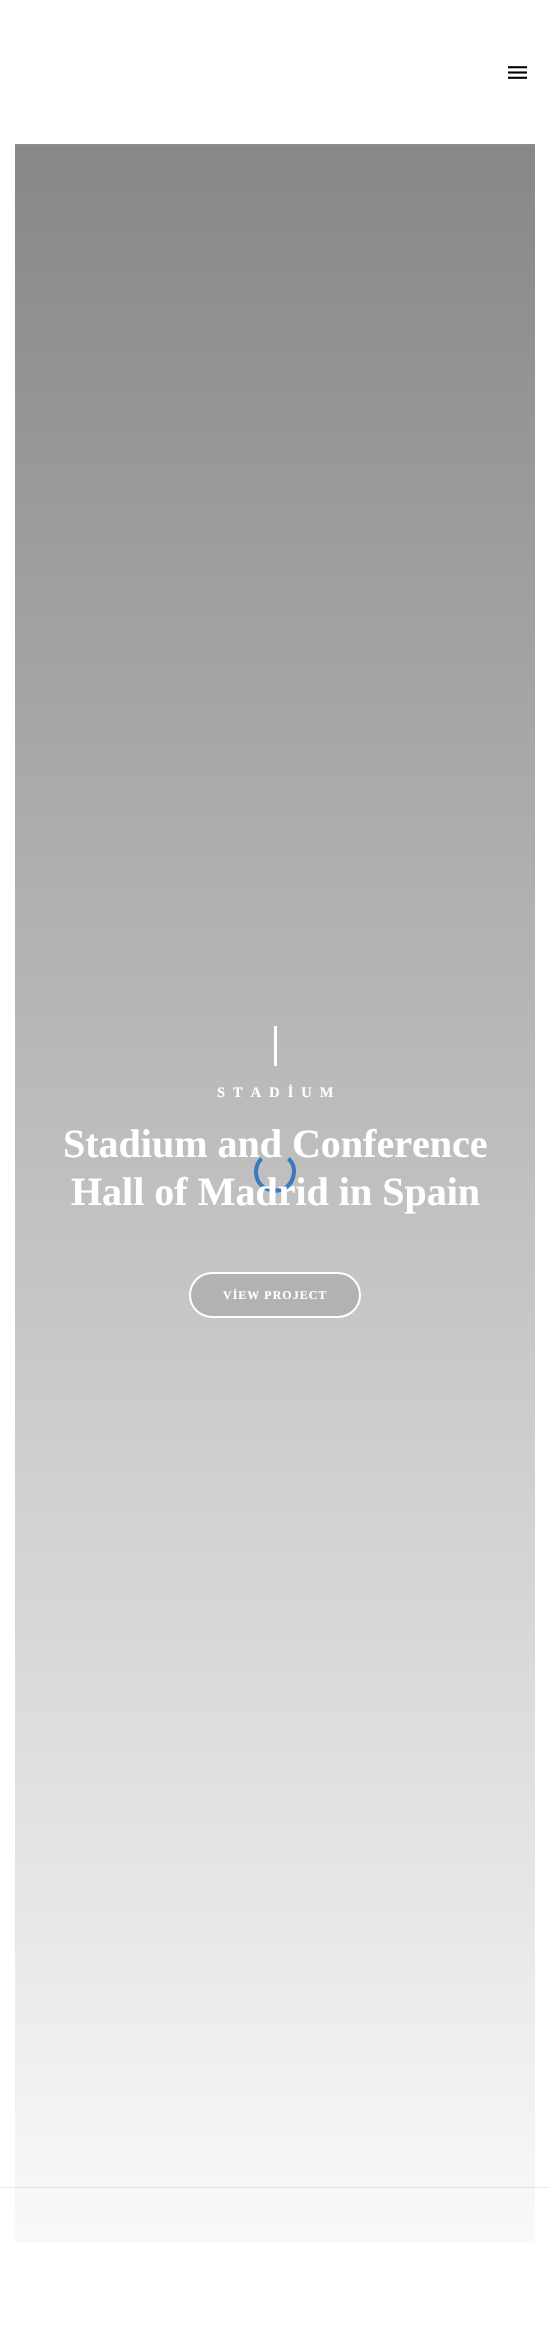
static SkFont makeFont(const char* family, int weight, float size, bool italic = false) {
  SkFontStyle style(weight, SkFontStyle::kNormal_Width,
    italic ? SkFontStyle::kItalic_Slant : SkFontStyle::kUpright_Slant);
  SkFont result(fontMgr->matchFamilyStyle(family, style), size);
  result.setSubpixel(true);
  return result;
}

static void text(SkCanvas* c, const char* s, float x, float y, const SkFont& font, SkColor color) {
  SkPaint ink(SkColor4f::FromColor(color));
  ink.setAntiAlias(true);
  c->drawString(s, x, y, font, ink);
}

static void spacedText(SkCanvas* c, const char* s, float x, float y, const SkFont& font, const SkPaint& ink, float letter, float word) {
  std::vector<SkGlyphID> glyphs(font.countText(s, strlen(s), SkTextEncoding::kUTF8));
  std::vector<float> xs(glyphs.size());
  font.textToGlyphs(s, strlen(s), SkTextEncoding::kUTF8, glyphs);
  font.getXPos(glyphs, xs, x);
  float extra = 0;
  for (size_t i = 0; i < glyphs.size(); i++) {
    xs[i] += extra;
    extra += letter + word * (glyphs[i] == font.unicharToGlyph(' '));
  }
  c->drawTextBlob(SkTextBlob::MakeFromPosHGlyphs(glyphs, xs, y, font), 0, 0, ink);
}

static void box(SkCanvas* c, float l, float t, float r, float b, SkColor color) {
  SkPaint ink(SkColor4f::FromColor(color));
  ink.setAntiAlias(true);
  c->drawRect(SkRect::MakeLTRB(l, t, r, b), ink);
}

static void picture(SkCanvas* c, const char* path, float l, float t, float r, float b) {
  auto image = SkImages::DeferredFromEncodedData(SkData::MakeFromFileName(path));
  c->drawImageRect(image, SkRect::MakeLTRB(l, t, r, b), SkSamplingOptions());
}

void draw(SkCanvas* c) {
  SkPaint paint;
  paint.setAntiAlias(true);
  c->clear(0xffffffff);
  paint.setStyle(SkPaint::kStroke_Style);
  paint.setStrokeWidth(4);
  paint.setColor(0xff4da2ff);
  c->drawPath(SkPathBuilder().moveTo(288.5f, 1158.5f).cubicTo(293, 1163, 295, 1169.5f, 293.5f, 1175.5f).cubicTo(289, 1198, 256, 1194.5f, 256, 1172).cubicTo(256, 1167, 258, 1162, 261.5f, 1158.5f).detach(), paint);
  paint.setStyle(SkPaint::kFill_Style);
  {
    const SkColor colors[] = {0x80000000, 0x00000000};
    const float stops[] = {0, 1};
    const SkPoint ends[] = {{275, 0}, {275, 2344}};
    paint.setShader(SkGradientShader::MakeLinear(ends, colors, stops, 2, SkTileMode::kClamp));
    paint.setAlpha(255);
  }
  c->drawRect(SkRect::MakeLTRB(15, 144, 535, 2243), paint);
  box(c, 15, 144, 535, 145, 0x0dffffff);
  picture(c, "img_01.png", 508, 66, 527, 79);
  box(c, 274, 1026, 277, 1066, 0xffffffff);
  SkFont face1 = makeFont("Liberation Serif", 700, 14.5f);
  paint.setShader(nullptr);
  paint.setColor(0xffffffff);
  spacedText(c, "STADİUM", 217, 1097, face1, paint, 8, 0);
  SkFont face2 = makeFont("Liberation Serif", 700, 40);
  text(c, "Stadium and Conference", 63, 1157, face2, 0xffffffff);
  text(c, "Hall of Madrid in Spain", 71, 1205, face2, 0xffffffff);
  paint.setColor(0xffb2b2b2);
  c->drawRoundRect(SkRect::MakeLTRB(190, 1273, 360, 1317), 22, 22, paint);
  paint.setStyle(SkPaint::kStroke_Style);
  paint.setStrokeWidth(2);
  paint.setColor(0xffffffff);
  c->drawRoundRect(SkRect::MakeLTRB(190, 1273, 360, 1317), 22, 22, paint);
  SkFont face3 = makeFont("Liberation Serif", 700, 12);
  paint.setStyle(SkPaint::kFill_Style);
  spacedText(c, "VİEW PROJECT", 223, 1299, face3, paint, 1, 0);
  box(c, 0, 2187, 550, 2188, 0x14000000);
}
